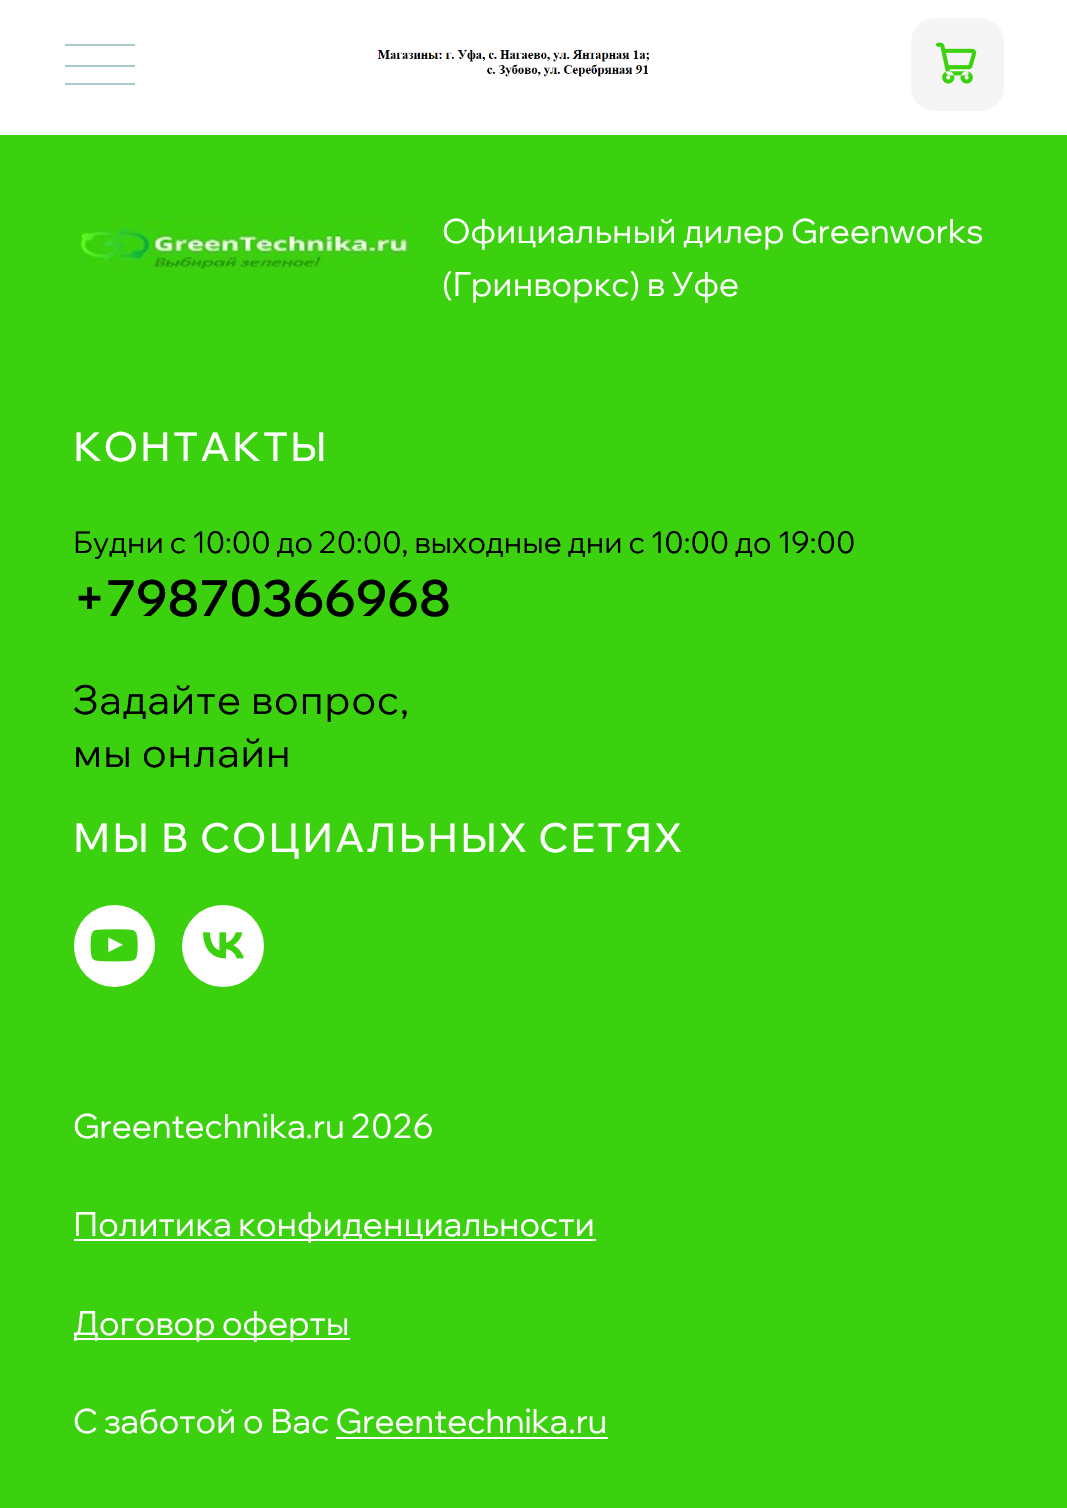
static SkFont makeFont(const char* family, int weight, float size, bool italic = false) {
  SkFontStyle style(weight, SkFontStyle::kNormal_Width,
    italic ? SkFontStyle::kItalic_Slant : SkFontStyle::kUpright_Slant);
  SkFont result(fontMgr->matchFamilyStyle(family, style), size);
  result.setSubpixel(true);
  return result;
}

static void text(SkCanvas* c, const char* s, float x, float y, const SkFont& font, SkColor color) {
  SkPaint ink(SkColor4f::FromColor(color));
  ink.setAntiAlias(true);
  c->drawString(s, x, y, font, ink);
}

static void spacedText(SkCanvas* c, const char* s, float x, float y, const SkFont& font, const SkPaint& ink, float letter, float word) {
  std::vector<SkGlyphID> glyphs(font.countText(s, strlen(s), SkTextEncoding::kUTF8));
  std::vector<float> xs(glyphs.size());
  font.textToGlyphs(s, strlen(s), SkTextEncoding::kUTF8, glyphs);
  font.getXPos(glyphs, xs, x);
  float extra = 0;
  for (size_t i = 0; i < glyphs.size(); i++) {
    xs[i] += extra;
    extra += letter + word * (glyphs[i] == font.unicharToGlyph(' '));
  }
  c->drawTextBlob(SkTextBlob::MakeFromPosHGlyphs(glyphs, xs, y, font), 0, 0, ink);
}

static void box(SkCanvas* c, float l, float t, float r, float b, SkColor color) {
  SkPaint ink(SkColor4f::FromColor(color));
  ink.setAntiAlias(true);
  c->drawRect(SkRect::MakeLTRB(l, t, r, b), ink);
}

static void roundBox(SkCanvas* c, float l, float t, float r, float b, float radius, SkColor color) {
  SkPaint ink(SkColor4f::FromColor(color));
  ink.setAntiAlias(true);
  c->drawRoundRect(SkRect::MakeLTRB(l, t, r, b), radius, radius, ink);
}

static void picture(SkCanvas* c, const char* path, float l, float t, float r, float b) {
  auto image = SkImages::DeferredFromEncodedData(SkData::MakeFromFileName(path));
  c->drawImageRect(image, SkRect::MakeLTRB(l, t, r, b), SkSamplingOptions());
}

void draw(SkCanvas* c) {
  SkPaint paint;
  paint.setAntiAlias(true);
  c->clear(0xff3cd10e);
  box(c, 0, 0, 1067, 135, 0xffffffff);
  box(c, 65, 44, 135, 46, 0xffadcacb);
  box(c, 65, 83, 135, 85, 0xffadcacb);
  box(c, 65, 65, 135, 67, 0xffadcacb);
  picture(c, "img_01.png", 377, 50, 649, 77);
  roundBox(c, 911, 18, 1004, 111, 24, 0xfff5f5f5);
  picture(c, "img_02.png", 936, 42, 977, 84);
  picture(c, "img_03.png", 78, 217, 415, 270);
  SkFont face1 = makeFont("Wix Madefor Display", 400, 33.4f);
  text(c, "Официальный дилер Greenworks", 442, 243, face1, 0xffffffff);
  text(c, "(Гринворкс) в Уфе", 442, 296, face1, 0xffffffff);
  SkFont face2 = makeFont("Wix Madefor Display", 500, 40);
  paint.setColor(0xffffffff);
  spacedText(c, "КОНТАКТЫ", 73, 461, face2, paint, 2.1f, 0);
  SkFont face3 = makeFont("Wix Madefor Display", 400, 30.05f);
  text(c, "Будни с 10:00 до 20:00, выходные дни с 10:00 до 19:00", 73, 553, face3, 0xff000000);
  SkFont face4 = makeFont("Wix Madefor Display", 600, 50);
  text(c, "+79870366968", 73, 616, face4, 0xff000000);
  SkFont face5 = makeFont("Wix Madefor Display", 400, 40);
  paint.setColor(0xff000000);
  spacedText(c, "Задайте вопрос,", 73, 714, face5, paint, 1.1f, 0);
  spacedText(c, "мы онлайн", 73, 767, face5, paint, 1.1f, 0);
  paint.setColor(0xffffffff);
  spacedText(c, "МЫ В СОЦИАЛЬНЫХ СЕТЯХ", 73, 852, face2, paint, 2.1f, 0);
  roundBox(c, 74, 905, 155, 987, 40.5f, 0xffffffff);
  picture(c, "img_04.png", 90, 929, 138, 962);
  c->drawCircle(223, 946, 41, paint);
  picture(c, "img_05.png", 203, 932, 244, 959);
  text(c, "Greentechnika.ru 2026", 73, 1138, face1, 0xffffffff);
  text(c, "Политика конфиденциальности", 73, 1236, face1, 0xffffffff);
  box(c, 74, 1239, 596, 1241, 0xffffffff);
  text(c, "Договор оферты", 73, 1335, face1, 0xffffffff);
  box(c, 74, 1338, 350, 1340, 0xffffffff);
  text(c, "С заботой о Вас Greentechnika.ru", 73, 1433, face1, 0xffffffff);
  box(c, 336, 1437, 608, 1439, 0xffffffff);
}
